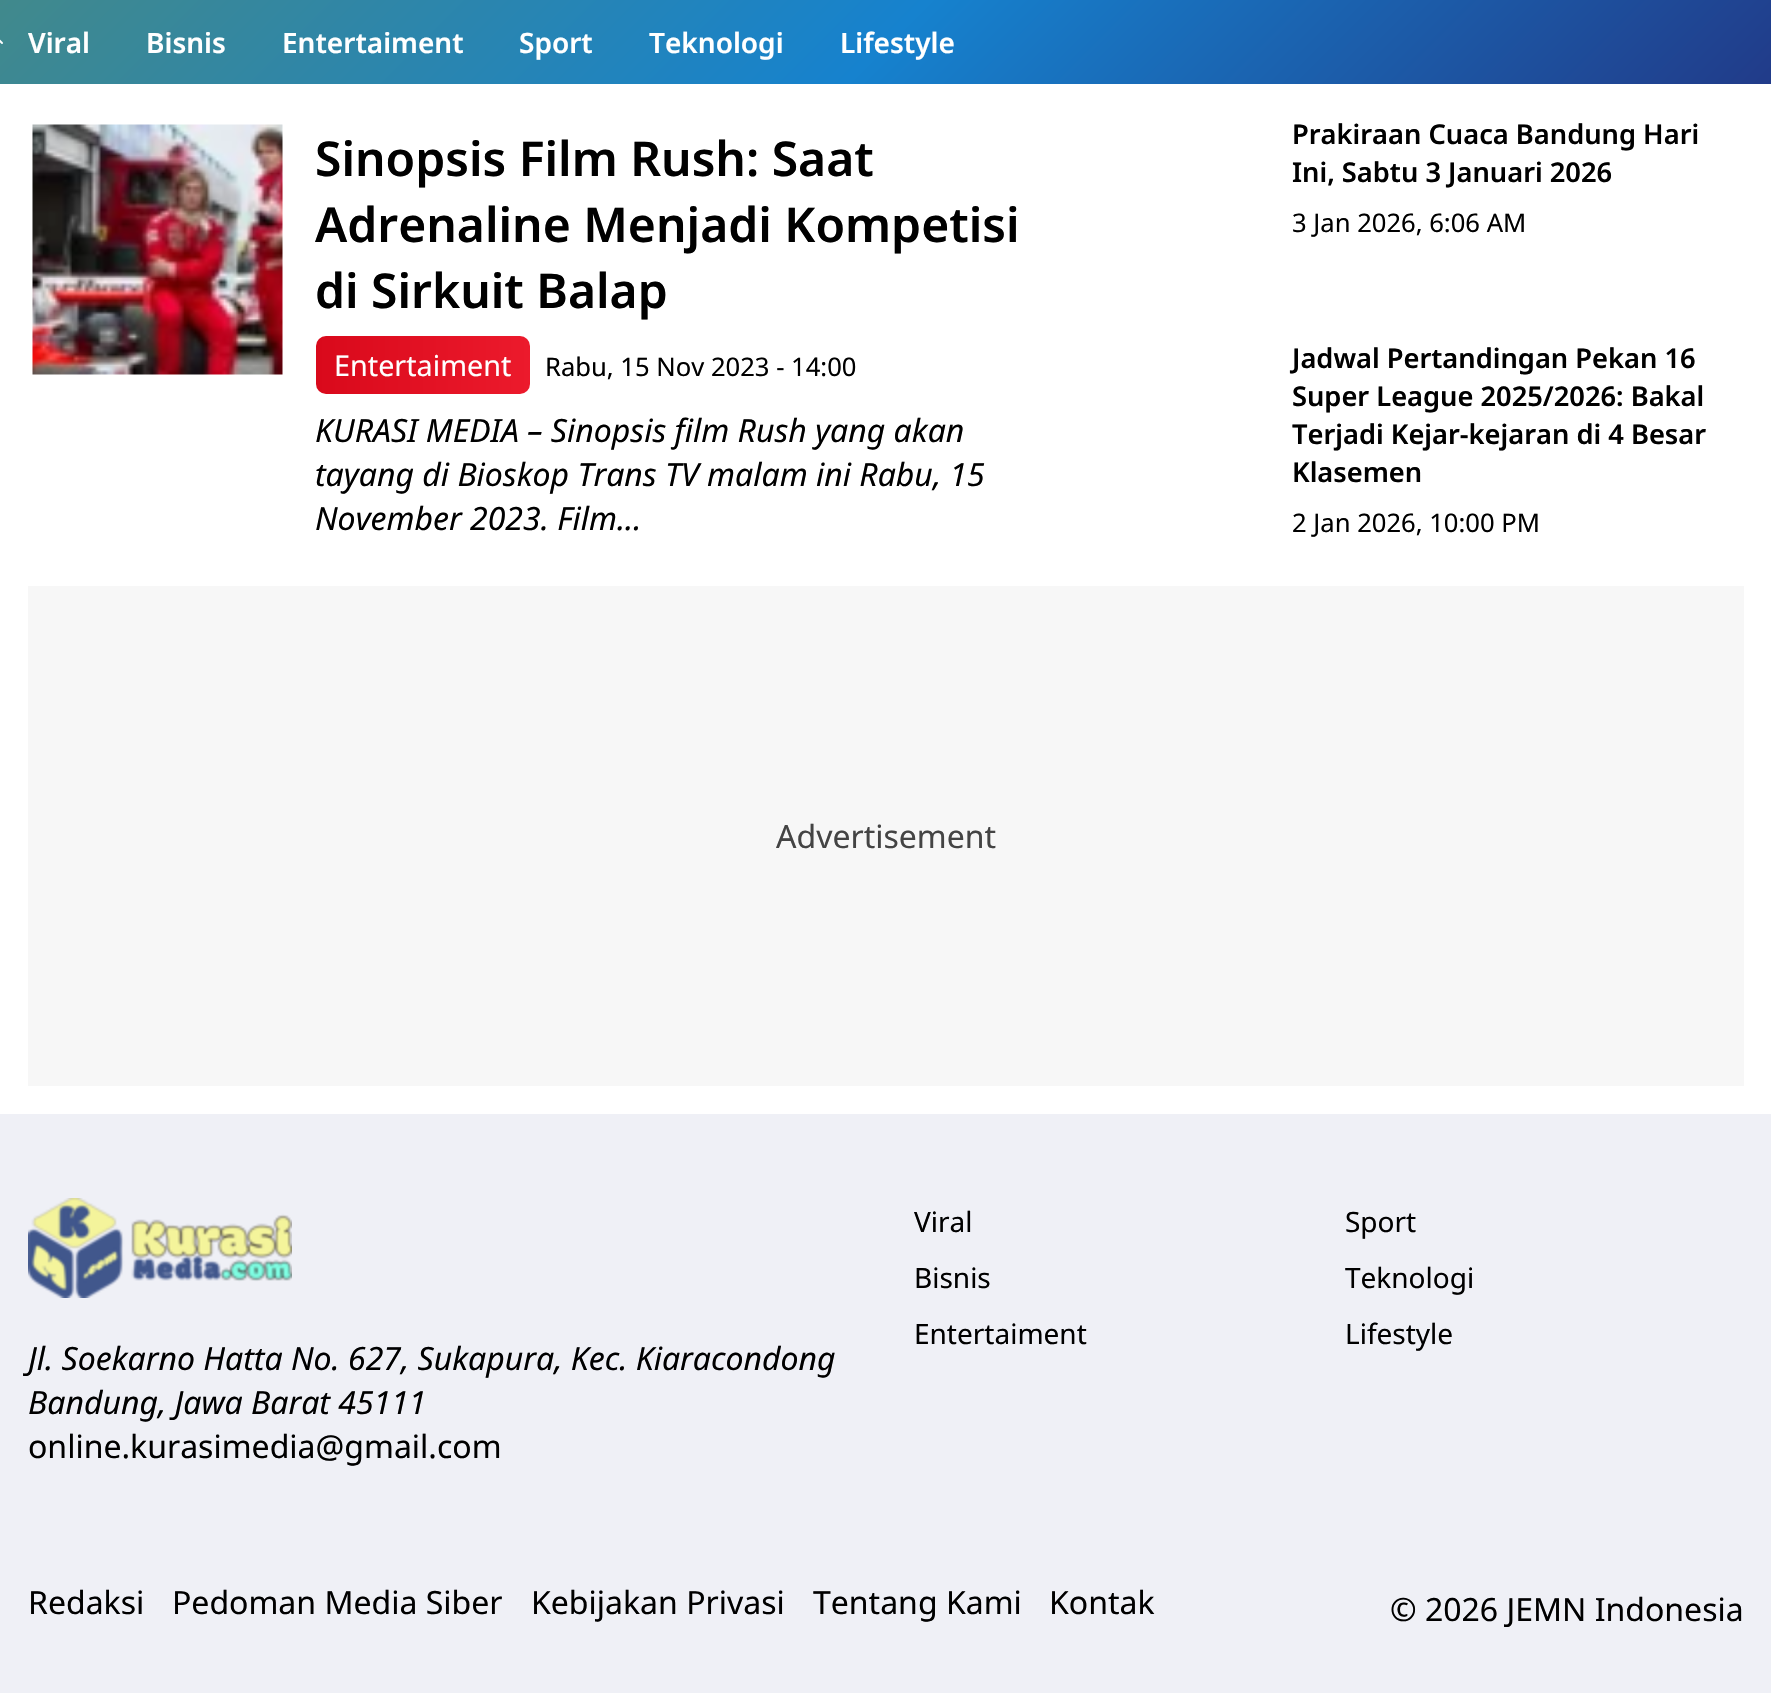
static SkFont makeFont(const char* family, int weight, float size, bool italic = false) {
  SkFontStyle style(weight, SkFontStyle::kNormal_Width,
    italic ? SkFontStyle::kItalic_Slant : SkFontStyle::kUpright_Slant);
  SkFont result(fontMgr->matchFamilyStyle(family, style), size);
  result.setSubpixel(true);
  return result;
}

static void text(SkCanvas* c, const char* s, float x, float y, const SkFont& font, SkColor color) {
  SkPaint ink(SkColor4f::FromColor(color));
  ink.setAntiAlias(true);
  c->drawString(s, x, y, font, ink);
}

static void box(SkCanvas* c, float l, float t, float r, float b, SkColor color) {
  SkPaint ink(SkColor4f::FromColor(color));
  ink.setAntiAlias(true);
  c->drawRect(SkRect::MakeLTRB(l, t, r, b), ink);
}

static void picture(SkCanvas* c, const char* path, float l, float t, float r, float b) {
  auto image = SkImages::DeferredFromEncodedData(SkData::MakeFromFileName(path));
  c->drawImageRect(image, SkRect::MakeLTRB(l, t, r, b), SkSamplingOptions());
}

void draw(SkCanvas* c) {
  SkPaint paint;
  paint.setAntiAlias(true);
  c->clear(0xffffffff);
  {
    const SkColor colors[] = {0xff41898c, 0xff1682ce, 0xff213b89};
    const float stops[] = {0, 0.5f, 1};
    const SkPoint ends[] = {{422, -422}, {1350, 506}};
    paint.setShader(SkGradientShader::MakeLinear(ends, colors, stops, 3, SkTileMode::kClamp));
    paint.setAlpha(255);
  }
  c->drawRect(SkRect::MakeLTRB(0, 0, 1771, 84), paint);
  picture(c, "img_01.png", 0, 39, 3, 44);
  SkFont face1 = makeFont("Noto Sans", 600, 28);
  text(c, "Viral", 28, 53, face1, 0xffffffff);
  text(c, "Bisnis", 146, 53, face1, 0xffffffff);
  text(c, "Entertaiment", 282, 53, face1, 0xffffffff);
  text(c, "Sport", 519, 53, face1, 0xffffffff);
  text(c, "Teknologi", 649, 53, face1, 0xffffffff);
  text(c, "Lifestyle", 840, 53, face1, 0xffffffff);
  picture(c, "img_02.png", 32, 124, 283, 375);
  SkFont face2 = makeFont("Noto Sans", 600, 48);
  text(c, "Sinopsis Film Rush: Saat", 315, 176, face2, 0xff000000);
  text(c, "Adrenaline Menjadi Kompetisi", 315, 242, face2, 0xff000000);
  text(c, "di Sirkuit Balap", 315, 308, face2, 0xff000000);
  {
    const SkColor colors[] = {0xffd9091b, 0xffec1a2c};
    const float stops[] = {0, 1};
    const SkPoint ends[] = {{316, 365}, {530, 365}};
    paint.setShader(SkGradientShader::MakeLinear(ends, colors, stops, 2, SkTileMode::kClamp));
    paint.setAlpha(255);
  }
  c->drawRoundRect(SkRect::MakeLTRB(316, 336, 530, 394), 10, 10, paint);
  SkFont face3 = makeFont("Noto Sans", 400, 28.75f);
  text(c, "Entertaiment", 334, 376, face3, 0xffffffff);
  SkFont face4 = makeFont("Noto Sans", 400, 25.6f);
  text(c, "Rabu, 15 Nov 2023 - 14:00", 545, 376, face4, 0xff000000);
  SkFont face5 = makeFont("Noto Sans", 400, 32, true);
  text(c, "KURASI MEDIA – Sinopsis film Rush yang akan", 315, 442, face5, 0xff000000);
  text(c, "tayang di Bioskop Trans TV malam ini Rabu, 15", 315, 486, face5, 0xff000000);
  text(c, "November 2023. Film...", 315, 530, face5, 0xff000000);
  SkFont face6 = makeFont("Noto Sans", 600, 27.25f);
  text(c, "Prakiraan Cuaca Bandung Hari", 1292, 144, face6, 0xff000000);
  text(c, "Ini, Sabtu 3 Januari 2026", 1292, 182, face6, 0xff000000);
  text(c, "3 Jan 2026, 6:06 AM", 1292, 232, face4, 0xff000000);
  text(c, "Jadwal Pertandingan Pekan 16", 1292, 368, face6, 0xff000000);
  text(c, "Super League 2025/2026: Bakal", 1292, 406, face6, 0xff000000);
  text(c, "Terjadi Kejar-kejaran di 4 Besar", 1292, 444, face6, 0xff000000);
  text(c, "Klasemen", 1292, 482, face6, 0xff000000);
  text(c, "2 Jan 2026, 10:00 PM", 1292, 532, face4, 0xff000000);
  box(c, 28, 586, 1744, 1086, 0xfff7f7f7);
  SkFont face7 = makeFont("Noto Sans", 400, 32);
  text(c, "Advertisement", 776, 848, face7, 0xff444444);
  box(c, 0, 1114, 1771, 1693, 0xffeff0f6);
  SkFont face8 = makeFont("Noto Sans", 400, 28);
  text(c, "Viral", 914, 1232, face8, 0xff000000);
  text(c, "Sport", 1345, 1232, face8, 0xff000000);
  text(c, "Bisnis", 914, 1288, face8, 0xff000000);
  text(c, "Teknologi", 1345, 1288, face8, 0xff000000);
  text(c, "Entertaiment", 914, 1344, face8, 0xff000000);
  text(c, "Lifestyle", 1345, 1344, face8, 0xff000000);
  picture(c, "img_03.png", 28, 1198, 292, 1298);
  text(c, "Jl. Soekarno Hatta No. 627, Sukapura, Kec. Kiaracondong", 28, 1370, face5, 0xff000000);
  text(c, "Bandung, Jawa Barat 45111", 28, 1414, face5, 0xff000000);
  text(c, "online.kurasimedia@gmail.com", 28, 1458, face7, 0xff000000);
  text(c, "Redaksi", 28, 1614, face7, 0xff000000);
  text(c, "Pedoman Media Siber", 172, 1614, face7, 0xff000000);
  text(c, "Kebijakan Privasi", 531, 1614, face7, 0xff000000);
  text(c, "Tentang Kami", 813, 1614, face7, 0xff000000);
  text(c, "Kontak", 1049, 1614, face7, 0xff000000);
  text(c, "© 2026 JEMN Indonesia", 1390, 1621, face7, 0xff000000);
}
